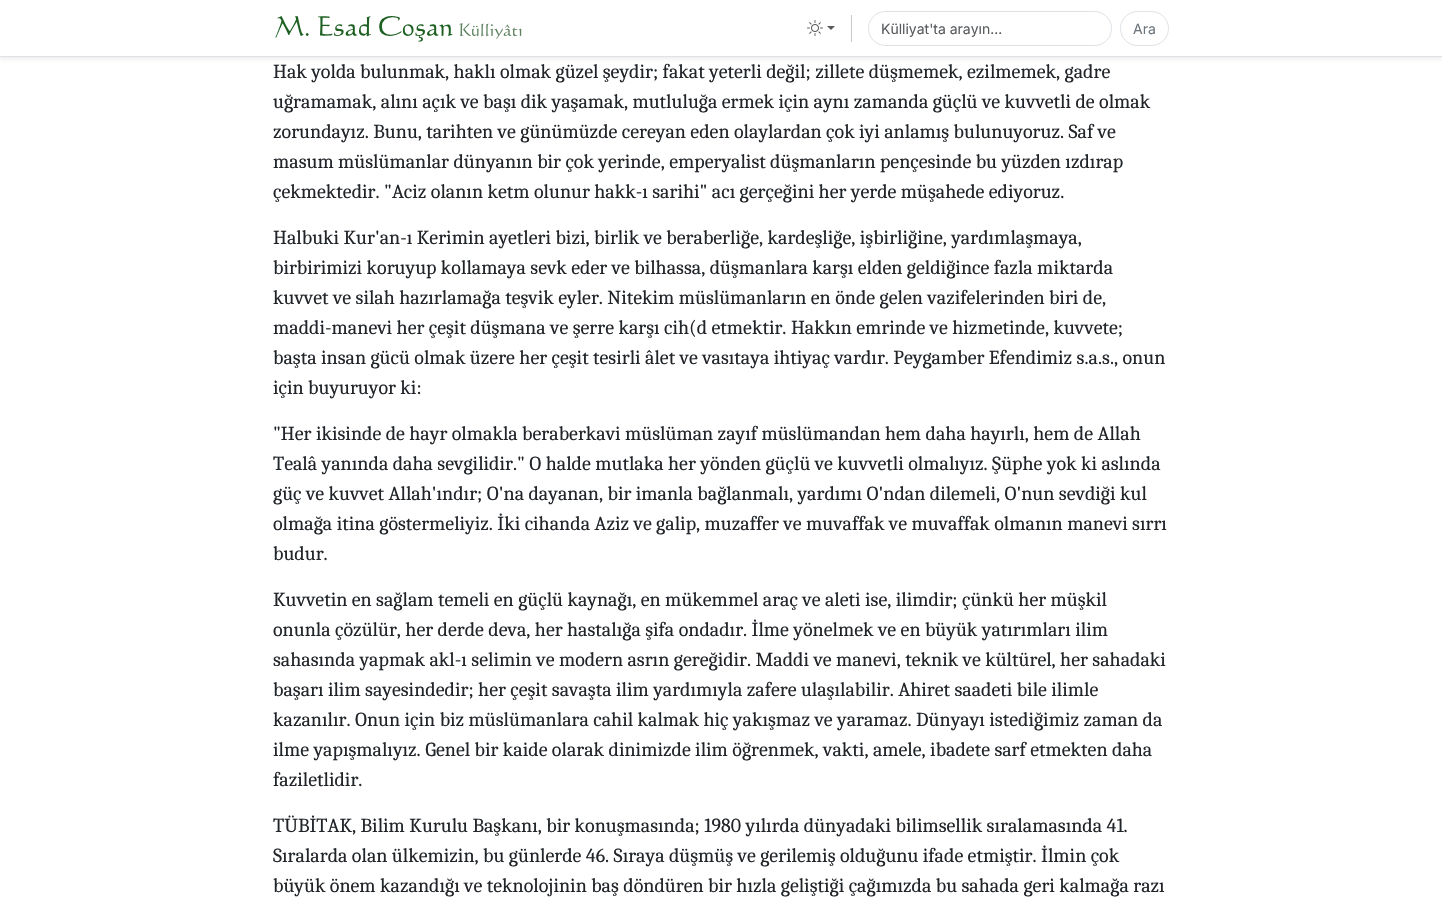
static SkFont makeFont(const char* family, int weight, float size, bool italic = false) {
  SkFontStyle style(weight, SkFontStyle::kNormal_Width,
    italic ? SkFontStyle::kItalic_Slant : SkFontStyle::kUpright_Slant);
  SkFont result(fontMgr->matchFamilyStyle(family, style), size);
  result.setSubpixel(true);
  return result;
}

static void text(SkCanvas* c, const char* s, float x, float y, const SkFont& font, SkColor color) {
  SkPaint ink(SkColor4f::FromColor(color));
  ink.setAntiAlias(true);
  c->drawString(s, x, y, font, ink);
}

static void box(SkCanvas* c, float l, float t, float r, float b, SkColor color) {
  SkPaint ink(SkColor4f::FromColor(color));
  ink.setAntiAlias(true);
  c->drawRect(SkRect::MakeLTRB(l, t, r, b), ink);
}

static void picture(SkCanvas* c, const char* path, float l, float t, float r, float b) {
  auto image = SkImages::DeferredFromEncodedData(SkData::MakeFromFileName(path));
  c->drawImageRect(image, SkRect::MakeLTRB(l, t, r, b), SkSamplingOptions());
}

void draw(SkCanvas* c) {
  SkPaint paint;
  paint.setAntiAlias(true);
  c->clear(0xffffffff);
  paint.setColor(0x12000000);
  paint.setMaskFilter(SkMaskFilter::MakeBlur(kNormal_SkBlurStyle, 2));
  c->drawRect(SkRect::MakeLTRB(0, 2, 1442, 59), paint);
  paint.setMaskFilter(nullptr);
  box(c, 0, 0, 1442, 56, 0xffffffff);
  box(c, 0, 56, 1442, 57, 0xffdee2e6);
  picture(c, "img_01.png", 275, 16, 522, 42);
  picture(c, "img_02.png", 807, 20, 823, 36);
  paint.setColor(0xff595959);
  c->drawPath(SkPathBuilder().moveTo(827, 26).lineTo(835, 26).lineTo(831, 30).close().detach(), paint);
  box(c, 851, 15, 852, 42, 0xffc8c9ca);
  paint.setStyle(SkPaint::kStroke_Style);
  paint.setStrokeWidth(1);
  paint.setColor(0xffdee2e6);
  c->drawRoundRect(SkRect::MakeLTRB(868.5f, 11.5f, 1111.5f, 45.5f), 17, 17, paint);
  SkFont face1 = makeFont("Inter", 400, 14);
  text(c, "Külliyat'ta arayın...", 881, 34, face1, 0xff595c5f);
  c->drawRoundRect(SkRect::MakeLTRB(1120.5f, 11.5f, 1168.5f, 45.5f), 17, 17, paint);
  text(c, "Ara", 1133, 34, face1, 0xff6c757d);
  SkFont face2 = makeFont("Caladea", 400, 20);
  text(c, "Hak yolda bulunmak, haklı olmak güzel şeydir; fakat yeterli değil; zillete düşmemek, ezilmemek, gadre", 273, 78, face2, 0xff212529);
  text(c, "uğramamak, alını açık ve başı dik yaşamak, mutluluğa ermek için aynı zamanda güçlü ve kuvvetli de olmak", 273, 108, face2, 0xff212529);
  text(c, "zorundayız. Bunu, tarihten ve günümüzde cereyan eden olaylardan çok iyi anlamış bulunuyoruz. Saf ve", 273, 138, face2, 0xff212529);
  text(c, "masum müslümanlar dünyanın bir çok yerinde, emperyalist düşmanların pençesinde bu yüzden ızdırap", 273, 168, face2, 0xff212529);
  text(c, "çekmektedir. \"Aciz olanın ketm olunur hakk-ı sarihi\" acı gerçeğini her yerde müşahede ediyoruz.", 273, 198, face2, 0xff212529);
  text(c, "Halbuki Kur'an-ı Kerimin ayetleri bizi, birlik ve beraberliğe, kardeşliğe, işbirliğine, yardımlaşmaya,", 273, 244, face2, 0xff212529);
  text(c, "birbirimizi koruyup kollamaya sevk eder ve bilhassa, düşmanlara karşı elden geldiğince fazla miktarda", 273, 274, face2, 0xff212529);
  text(c, "kuvvet ve silah hazırlamağa teşvik eyler. Nitekim müslümanların en önde gelen vazifelerinden biri de,", 273, 304, face2, 0xff212529);
  text(c, "maddi-manevi her çeşit düşmana ve şerre karşı cih(d etmektir. Hakkın emrinde ve hizmetinde, kuvvete;", 273, 334, face2, 0xff212529);
  text(c, "başta insan gücü olmak üzere her çeşit tesirli âlet ve vasıtaya ihtiyaç vardır. Peygamber Efendimiz s.a.s., onun", 273, 364, face2, 0xff212529);
  text(c, "için buyuruyor ki:", 273, 394, face2, 0xff212529);
  text(c, "\"Her ikisinde de hayr olmakla beraberkavi müslüman zayıf müslümandan hem daha hayırlı, hem de Allah", 273, 440, face2, 0xff212529);
  text(c, "Tealâ yanında daha sevgilidir.\" O halde mutlaka her yönden güçlü ve kuvvetli olmalıyız. Şüphe yok ki aslında", 273, 470, face2, 0xff212529);
  text(c, "güç ve kuvvet Allah'ındır; O'na dayanan, bir imanla bağlanmalı, yardımı O'ndan dilemeli, O'nun sevdiği kul", 273, 500, face2, 0xff212529);
  text(c, "olmağa itina göstermeliyiz. İki cihanda Aziz ve galip, muzaffer ve muvaffak ve muvaffak olmanın manevi sırrı", 273, 530, face2, 0xff212529);
  text(c, "budur.", 273, 560, face2, 0xff212529);
  text(c, "Kuvvetin en sağlam temeli en güçlü kaynağı, en mükemmel araç ve aleti ise, ilimdir; çünkü her müşkil", 273, 606, face2, 0xff212529);
  text(c, "onunla çözülür, her derde deva, her hastalığa şifa ondadır. İlme yönelmek ve en büyük yatırımları ilim", 273, 636, face2, 0xff212529);
  text(c, "sahasında yapmak akl-ı selimin ve modern asrın gereğidir. Maddi ve manevi, teknik ve kültürel, her sahadaki", 273, 666, face2, 0xff212529);
  text(c, "başarı ilim sayesindedir; her çeşit savaşta ilim yardımıyla zafere ulaşılabilir. Ahiret saadeti bile ilimle", 273, 696, face2, 0xff212529);
  text(c, "kazanılır. Onun için biz müslümanlara cahil kalmak hiç yakışmaz ve yaramaz. Dünyayı istediğimiz zaman da", 273, 726, face2, 0xff212529);
  text(c, "ilme yapışmalıyız. Genel bir kaide olarak dinimizde ilim öğrenmek, vakti, amele, ibadete sarf etmekten daha", 273, 756, face2, 0xff212529);
  text(c, "faziletlidir.", 273, 786, face2, 0xff212529);
  text(c, "TÜBİTAK, Bilim Kurulu Başkanı, bir konuşmasında; 1980 yılırda dünyadaki bilimsellik sıralamasında 41.", 273, 832, face2, 0xff212529);
  text(c, "Sıralarda olan ülkemizin, bu günlerde 46. Sıraya düşmüş ve gerilemiş olduğunu ifade etmiştir. İlmin çok", 273, 862, face2, 0xff212529);
  text(c, "büyük önem kazandığı ve teknolojinin baş döndüren bir hızla geliştiği çağımızda bu sahada geri kalmağa razı", 273, 892, face2, 0xff212529);
}
